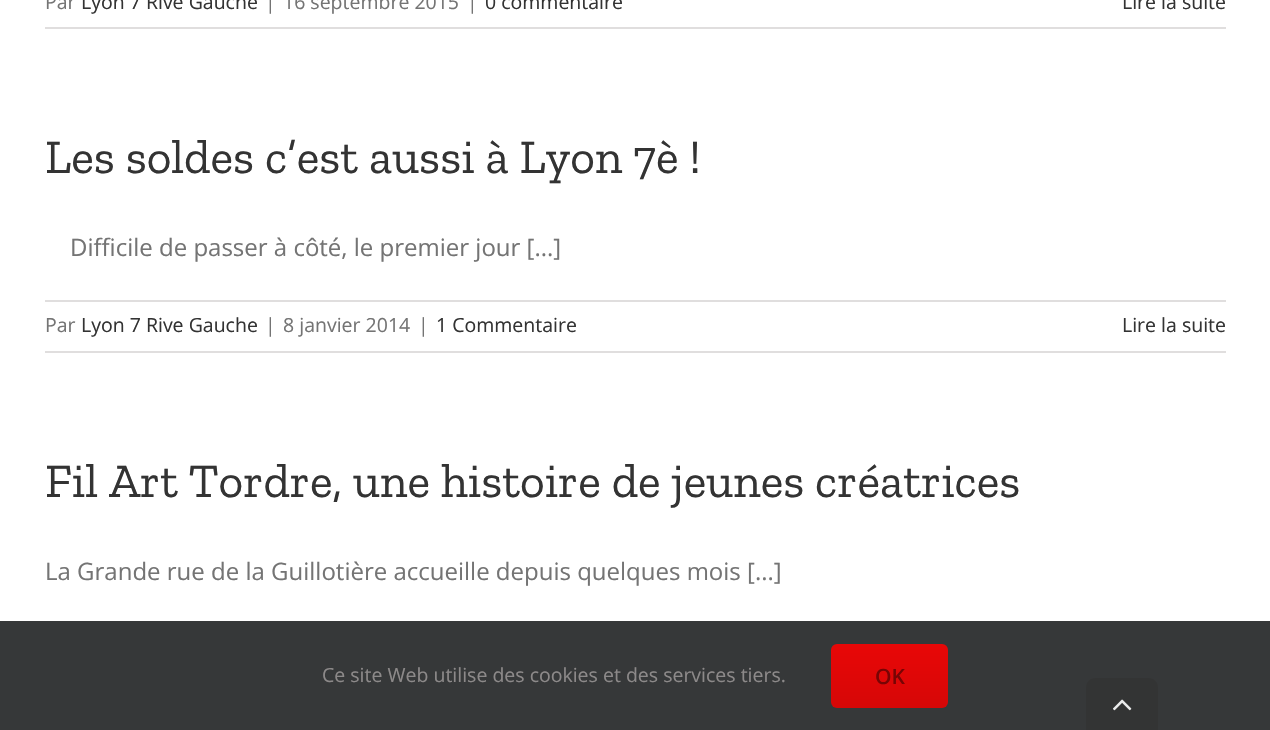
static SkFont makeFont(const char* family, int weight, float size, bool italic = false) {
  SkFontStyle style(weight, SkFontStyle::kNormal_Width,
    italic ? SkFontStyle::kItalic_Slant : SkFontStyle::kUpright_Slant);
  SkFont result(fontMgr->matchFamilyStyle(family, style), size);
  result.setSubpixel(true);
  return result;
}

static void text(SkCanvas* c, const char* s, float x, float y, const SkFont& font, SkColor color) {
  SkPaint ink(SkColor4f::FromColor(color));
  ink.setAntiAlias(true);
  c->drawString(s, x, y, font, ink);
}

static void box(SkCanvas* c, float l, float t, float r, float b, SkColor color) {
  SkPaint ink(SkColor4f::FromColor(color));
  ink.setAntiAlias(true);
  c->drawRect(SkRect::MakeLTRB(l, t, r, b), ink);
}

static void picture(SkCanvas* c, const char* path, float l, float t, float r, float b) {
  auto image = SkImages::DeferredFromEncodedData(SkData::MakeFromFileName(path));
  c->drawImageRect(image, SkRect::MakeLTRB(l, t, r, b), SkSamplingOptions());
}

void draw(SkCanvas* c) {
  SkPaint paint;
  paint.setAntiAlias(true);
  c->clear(0xffffffff);
  box(c, 45, 27, 1226, 29, 0xffe0dede);
  SkFont face1 = makeFont("Open Sans", 400, 19.5f);
  text(c, "Par", 45, 9, face1, 0xff747474);
  text(c, "Lyon 7 Rive Gauche", 81, 9, face1, 0xff333333);
  text(c, "|", 265, 9, face1, 0xff747474);
  text(c, "16 septembre 2015", 283, 9, face1, 0xff747474);
  text(c, "|", 467, 9, face1, 0xff747474);
  text(c, "0 commentaire", 485, 9, face1, 0xff333333);
  text(c, "Lire la suite", 1122, 9, face1, 0xff333333);
  SkFont face2 = makeFont("Zilla Slab", 400, 48);
  text(c, "Les soldes c’est aussi à Lyon 7è !", 45, 173, face2, 0xff333333);
  SkFont face3 = makeFont("Open Sans", 400, 24);
  text(c, "Difficile de passer à côté, le premier jour [...]", 70, 256, face3, 0xff747474);
  box(c, 45, 300, 1226, 302, 0xffe0dede);
  box(c, 45, 351, 1226, 353, 0xffe0dede);
  text(c, "Par", 45, 332, face1, 0xff747474);
  text(c, "Lyon 7 Rive Gauche", 81, 332, face1, 0xff333333);
  text(c, "|", 265, 332, face1, 0xff747474);
  text(c, "8 janvier 2014", 283, 332, face1, 0xff747474);
  text(c, "|", 418, 332, face1, 0xff747474);
  text(c, "1 Commentaire", 436, 332, face1, 0xff333333);
  text(c, "Lire la suite", 1122, 332, face1, 0xff333333);
  text(c, "Fil Art Tordre, une histoire de jeunes créatrices", 45, 497, face2, 0xff333333);
  text(c, "La Grande rue de la Guillotière accueille depuis quelques mois [...]", 45, 580, face3, 0xff747474);
  box(c, 0, 621, 1270, 730, 0xff363839);
  text(c, "Ce site Web utilise des cookies et des services tiers.", 322, 682, face1, 0xff8c8989);
  {
    const SkColor colors[] = {0xffe80707, 0xffd60707};
    const float stops[] = {0, 1};
    const SkPoint ends[] = {{890, 644}, {890, 708}};
    paint.setShader(SkGradientShader::MakeLinear(ends, colors, stops, 2, SkTileMode::kClamp));
    paint.setAlpha(255);
  }
  c->drawRoundRect(SkRect::MakeLTRB(831, 644, 948, 708), 6, 6, paint);
  SkFont face4 = makeFont("Open Sans", 600, 21);
  text(c, "OK", 875, 684, face4, 0xff780404);
  paint.setShader(nullptr);
  paint.setColor(0xff333434);
  c->drawPath(SkPathBuilder().moveTo(1095, 678).lineTo(1149, 678).cubicTo(1154, 678, 1158, 682, 1158, 687).lineTo(1158, 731).lineTo(1086, 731).lineTo(1086, 687).cubicTo(1086, 682, 1090, 678, 1095, 678).close().detach(), paint);
  picture(c, "img_01.png", 1113, 699, 1132, 711);
}
